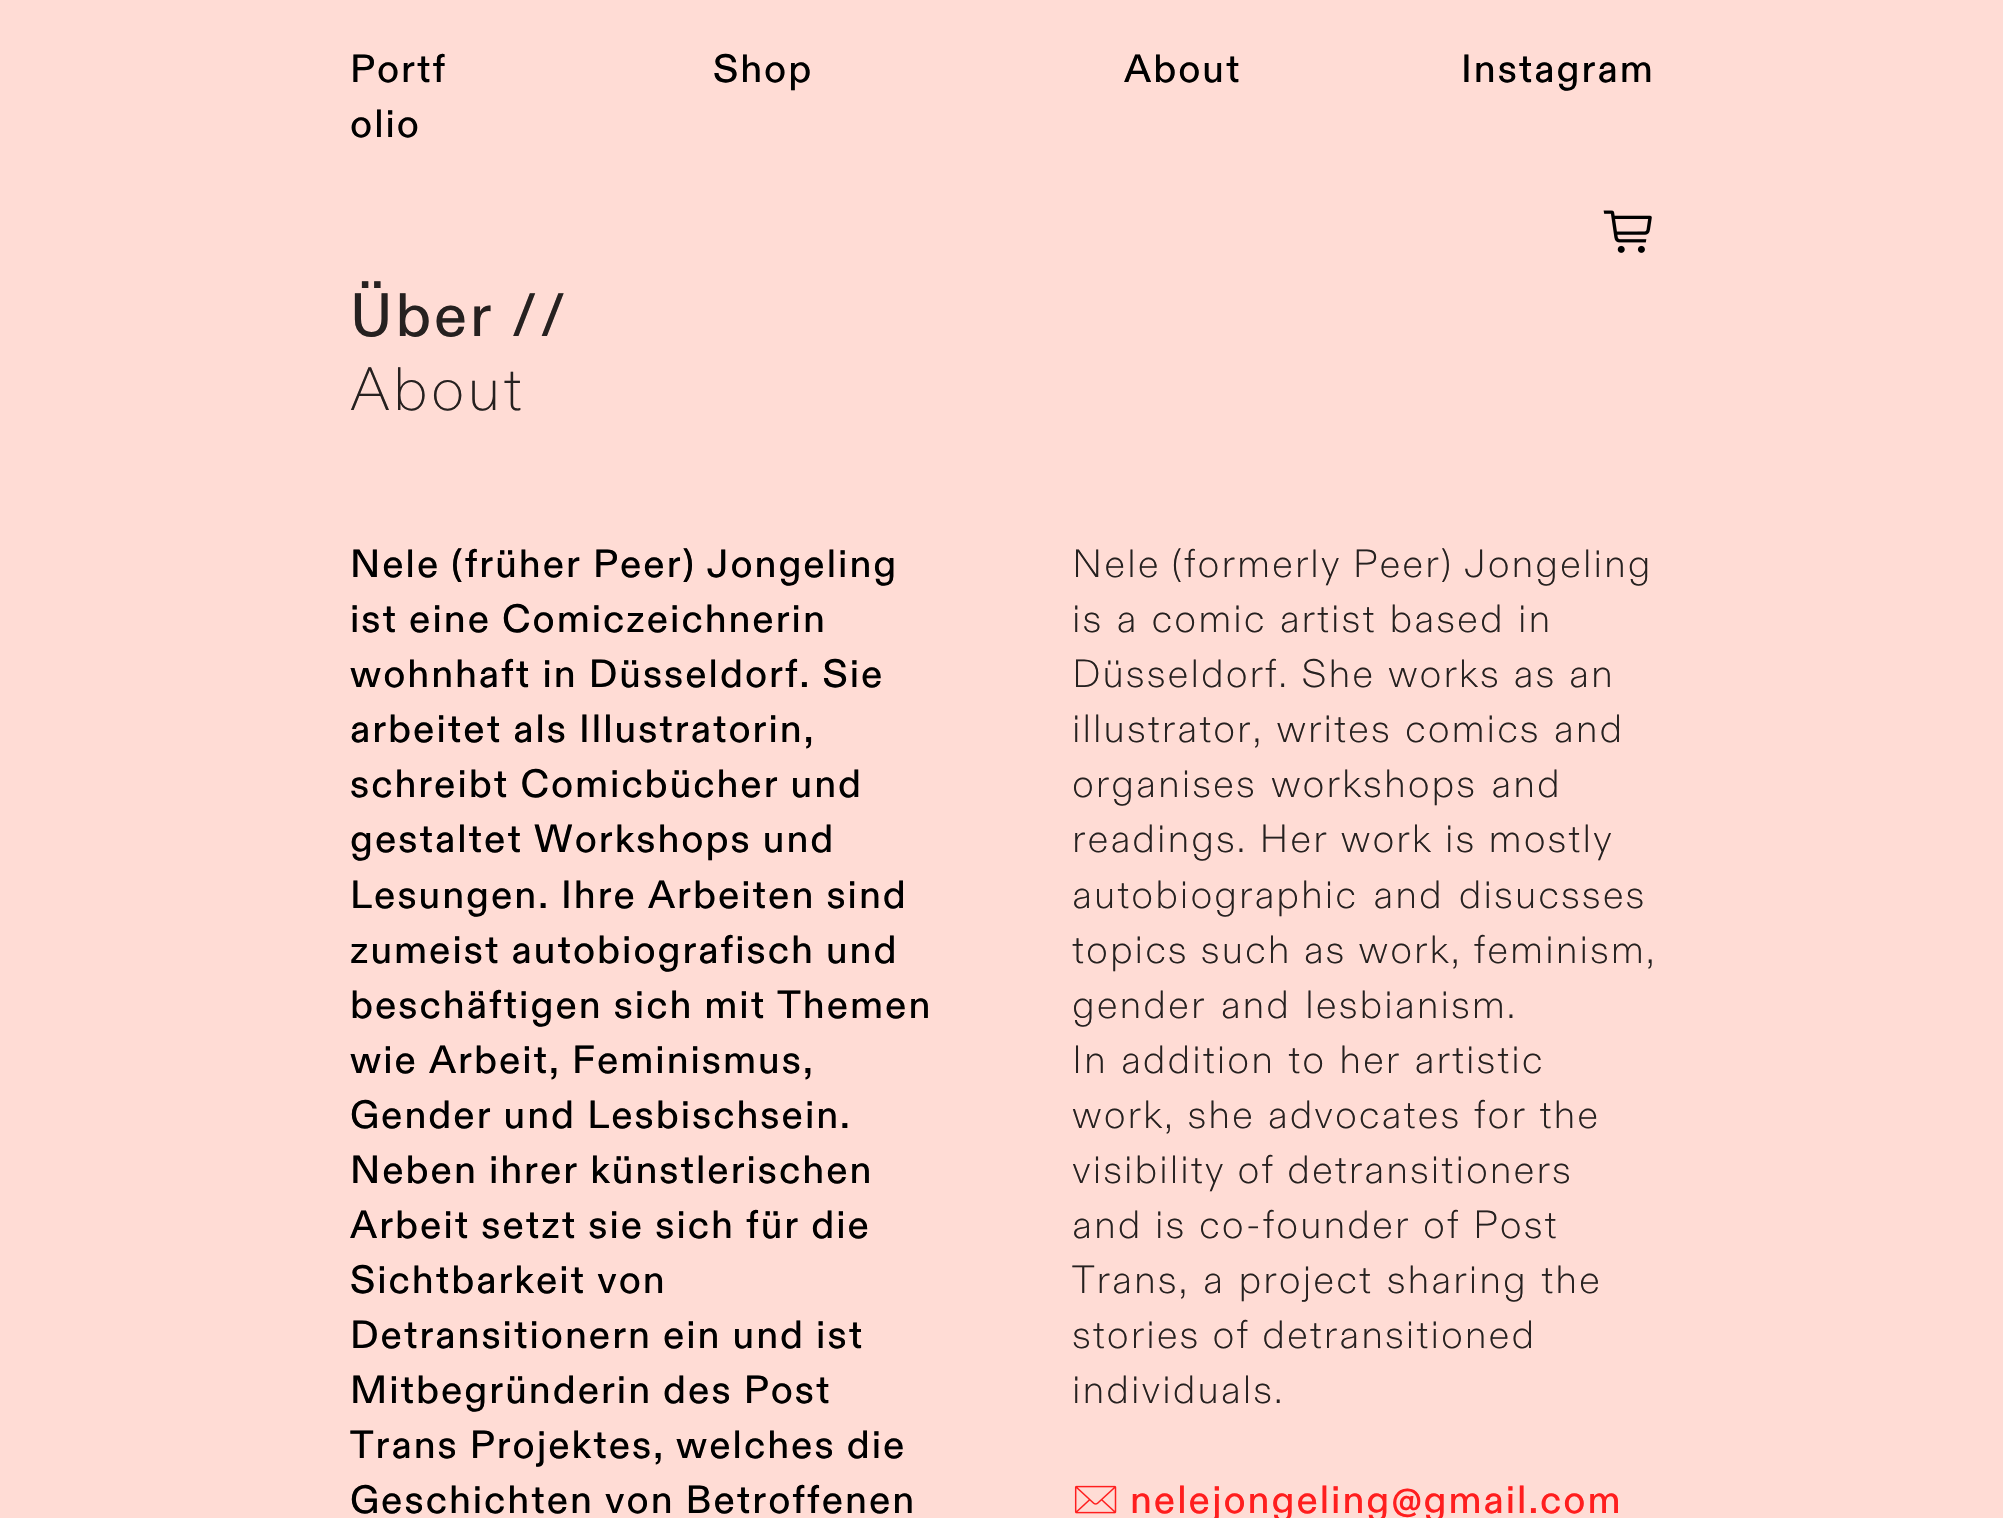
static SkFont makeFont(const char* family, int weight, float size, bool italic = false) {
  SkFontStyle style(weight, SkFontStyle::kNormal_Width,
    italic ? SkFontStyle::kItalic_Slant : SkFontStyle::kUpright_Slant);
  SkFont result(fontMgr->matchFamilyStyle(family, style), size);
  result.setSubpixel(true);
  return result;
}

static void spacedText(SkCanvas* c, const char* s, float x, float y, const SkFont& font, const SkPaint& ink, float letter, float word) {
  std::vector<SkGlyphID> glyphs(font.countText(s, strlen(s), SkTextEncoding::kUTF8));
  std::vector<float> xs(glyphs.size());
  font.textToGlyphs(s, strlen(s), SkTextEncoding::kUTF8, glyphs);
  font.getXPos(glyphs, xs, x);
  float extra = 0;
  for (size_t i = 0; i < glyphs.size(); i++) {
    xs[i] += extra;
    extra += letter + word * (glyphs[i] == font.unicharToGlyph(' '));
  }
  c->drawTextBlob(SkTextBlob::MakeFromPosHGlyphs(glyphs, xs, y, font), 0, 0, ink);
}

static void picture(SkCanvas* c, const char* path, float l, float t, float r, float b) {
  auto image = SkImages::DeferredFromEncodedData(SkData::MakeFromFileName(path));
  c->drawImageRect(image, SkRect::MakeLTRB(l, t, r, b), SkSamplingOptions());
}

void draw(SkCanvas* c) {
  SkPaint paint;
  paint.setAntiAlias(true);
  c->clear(0xffffdcd5);
  SkFont face1 = makeFont("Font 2", 400, 39.4f);
  paint.setColor(0xff000000);
  spacedText(c, "Portf", 350, 82, face1, paint, 2, 0);
  spacedText(c, "olio", 350, 137, face1, paint, 2, 0);
  spacedText(c, "Shop", 713, 82, face1, paint, 2, 0);
  spacedText(c, "About", 1124, 82, face1, paint, 2, 0);
  spacedText(c, "Instagram", 1461, 82, face1, paint, 2, 0);
  picture(c, "img_01.png", 1603, 210, 1652, 253);
  SkFont face2 = makeFont("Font", 400, 61);
  paint.setColor(0xff262120);
  spacedText(c, "Über //", 350, 336, face2, paint, 3, 0);
  SkFont face3 = makeFont("Font", 200, 61);
  spacedText(c, "About", 350, 410, face3, paint, 3, 0);
  paint.setColor(0xff000000);
  spacedText(c, "Nele (früher Peer) Jongeling", 350, 577, face1, paint, 2, 0);
  spacedText(c, "ist eine Comiczeichnerin", 350, 632, face1, paint, 2, 0);
  spacedText(c, "wohnhaft in Düsseldorf. Sie", 350, 687, face1, paint, 2, 0);
  spacedText(c, "arbeitet als Illustratorin,", 350, 742, face1, paint, 2, 0);
  spacedText(c, "schreibt Comicbücher und", 350, 797, face1, paint, 2, 0);
  spacedText(c, "gestaltet Workshops und", 350, 852, face1, paint, 2, 0);
  spacedText(c, "Lesungen. Ihre Arbeiten sind", 350, 908, face1, paint, 2, 0);
  spacedText(c, "zumeist autobiografisch und", 350, 963, face1, paint, 2, 0);
  spacedText(c, "beschäftigen sich mit Themen", 350, 1018, face1, paint, 2, 0);
  spacedText(c, "wie Arbeit, Feminismus,", 350, 1073, face1, paint, 2, 0);
  spacedText(c, "Gender und Lesbischsein.", 350, 1128, face1, paint, 2, 0);
  spacedText(c, "Neben ihrer künstlerischen", 350, 1183, face1, paint, 2, 0);
  spacedText(c, "Arbeit setzt sie sich für die", 350, 1238, face1, paint, 2, 0);
  spacedText(c, "Sichtbarkeit von", 350, 1293, face1, paint, 2, 0);
  spacedText(c, "Detransitionern ein und ist", 350, 1348, face1, paint, 2, 0);
  spacedText(c, "Mitbegründerin des Post", 350, 1403, face1, paint, 2, 0);
  spacedText(c, "Trans Projektes, welches die", 350, 1458, face1, paint, 2, 0);
  spacedText(c, "Geschichten von Betroffenen", 350, 1513, face1, paint, 2, 0);
  SkFont face4 = makeFont("Font 2", 200, 39.4f);
  paint.setColor(0xff262120);
  spacedText(c, "Nele (formerly Peer) Jongeling", 1072, 577, face4, paint, 2, -1);
  spacedText(c, "is a comic artist based in", 1072, 632, face4, paint, 2, 1);
  spacedText(c, "Düsseldorf. She works as an", 1072, 687, face4, paint, 2, 0.5f);
  spacedText(c, "illustrator, writes comics and", 1072, 742, face4, paint, 2, 1);
  spacedText(c, "organises workshops and", 1072, 797, face4, paint, 2, 2);
  spacedText(c, "readings. Her work is mostly", 1072, 852, face4, paint, 2, 0);
  spacedText(c, "autobiographic and disucsses", 1072, 908, face4, paint, 2, 3);
  spacedText(c, "topics such as work, feminism,", 1072, 963, face4, paint, 2, 0);
  spacedText(c, "gender and lesbianism.", 1072, 1018, face4, paint, 2, 2);
  spacedText(c, "In addition to her artistic", 1072, 1073, face4, paint, 2, 1);
  spacedText(c, "work, she advocates for the", 1072, 1128, face4, paint, 2, 0.5f);
  spacedText(c, "visibility of detransitioners", 1072, 1183, face4, paint, 2, 0);
  spacedText(c, "and is co-founder of Post", 1072, 1238, face4, paint, 2, 0.5f);
  spacedText(c, "Trans, a project sharing the", 1072, 1293, face4, paint, 2, 1.5f);
  spacedText(c, "stories of detransitioned", 1072, 1348, face4, paint, 2, 0);
  spacedText(c, "individuals.", 1072, 1403, face4, paint, 2, 0);
  picture(c, "img_02.png", 1074, 1485, 1117, 1514);
  paint.setColor(0xffff1e1e);
  spacedText(c, "nelejongeling@gmail.com", 1130, 1513, face1, paint, 2, 0);
}
